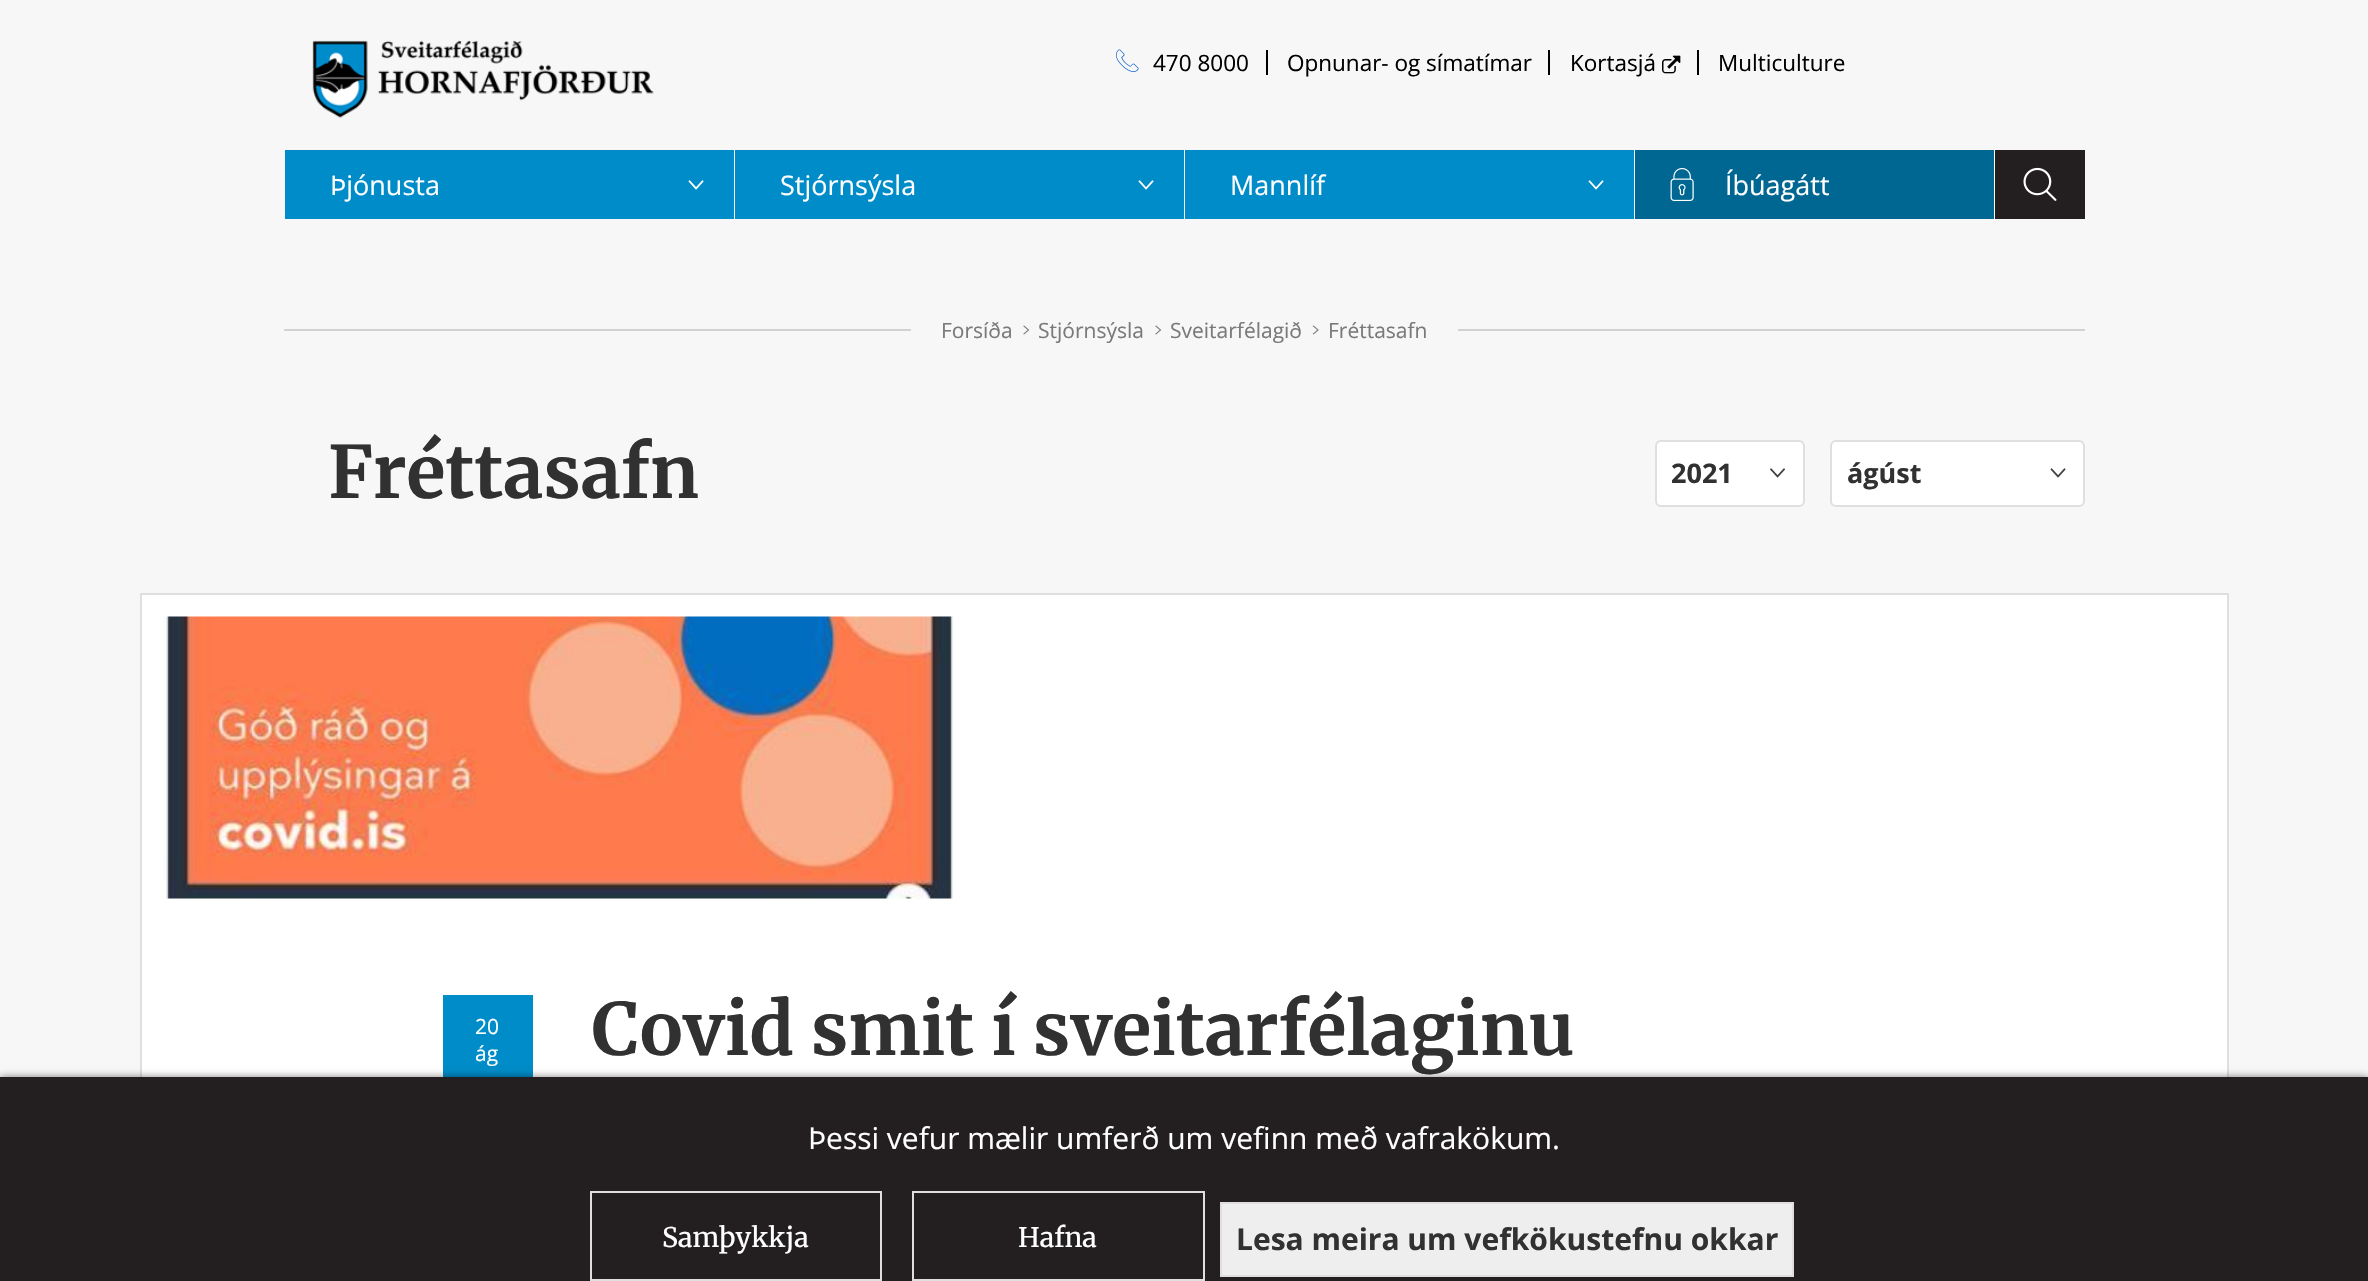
static SkFont makeFont(const char* family, int weight, float size, bool italic = false) {
  SkFontStyle style(weight, SkFontStyle::kNormal_Width,
    italic ? SkFontStyle::kItalic_Slant : SkFontStyle::kUpright_Slant);
  SkFont result(fontMgr->matchFamilyStyle(family, style), size);
  result.setSubpixel(true);
  return result;
}

static void text(SkCanvas* c, const char* s, float x, float y, const SkFont& font, SkColor color) {
  SkPaint ink(SkColor4f::FromColor(color));
  ink.setAntiAlias(true);
  c->drawString(s, x, y, font, ink);
}

static void box(SkCanvas* c, float l, float t, float r, float b, SkColor color) {
  SkPaint ink(SkColor4f::FromColor(color));
  ink.setAntiAlias(true);
  c->drawRect(SkRect::MakeLTRB(l, t, r, b), ink);
}

static void picture(SkCanvas* c, const char* path, float l, float t, float r, float b) {
  auto image = SkImages::DeferredFromEncodedData(SkData::MakeFromFileName(path));
  c->drawImageRect(image, SkRect::MakeLTRB(l, t, r, b), SkSamplingOptions());
}

void draw(SkCanvas* c) {
  SkPaint paint;
  paint.setAntiAlias(true);
  c->clear(0xfff7f7f7);
  picture(c, "img_01.png", 312, 40, 654, 118);
  picture(c, "img_02.png", 1116, 49, 1139, 72);
  SkFont face1 = makeFont("Open Sans", 400, 22.5f);
  text(c, "470 8000", 1153, 71, face1, 0xff000000);
  box(c, 1266, 50, 1268, 75, 0xff000000);
  text(c, "Opnunar- og símatímar", 1287, 71, face1, 0xff000000);
  box(c, 1548, 50, 1550, 75, 0xff000000);
  text(c, "Kortasjá", 1570, 71, face1, 0xff000000);
  picture(c, "img_03.png", 1662, 55, 1681, 74);
  box(c, 1697, 50, 1699, 75, 0xff000000);
  text(c, "Multiculture", 1718, 71, face1, 0xff000000);
  box(c, 285, 150, 734, 219, 0xff008cc8);
  SkFont face2 = makeFont("Open Sans", 400, 27);
  text(c, "Þjónusta", 330, 195, face2, 0xffffffff);
  picture(c, "img_04.png", 688, 180, 704, 190);
  box(c, 735, 150, 1184, 219, 0xff008cc8);
  text(c, "Stjórnsýsla", 780, 195, face2, 0xffffffff);
  picture(c, "img_04.png", 1138, 180, 1154, 190);
  box(c, 1185, 150, 1634, 219, 0xff008cc8);
  text(c, "Mannlíf", 1230, 195, face2, 0xffffffff);
  picture(c, "img_04.png", 1588, 180, 1604, 190);
  box(c, 1635, 150, 1994, 219, 0xff006692);
  picture(c, "img_05.png", 1670, 168, 1694, 201);
  text(c, "Íbúagátt", 1725, 195, face2, 0xffffffff);
  box(c, 1995, 150, 2085, 219, 0xff231f20);
  picture(c, "img_06.png", 2023, 167, 2057, 201);
  box(c, 284, 329, 2085, 331, 0xffd2d2d2);
  box(c, 911, 329, 1458, 331, 0xfff7f7f7);
  SkFont face3 = makeFont("Open Sans", 400, 21);
  text(c, "Forsíða", 941, 338, face3, 0xff7a7a7a);
  picture(c, "img_07.png", 1023, 325, 1030, 335);
  text(c, "Stjórnsýsla", 1038, 338, face3, 0xff7a7a7a);
  picture(c, "img_07.png", 1155, 325, 1162, 335);
  text(c, "Sveitarfélagið", 1170, 338, face3, 0xff7a7a7a);
  picture(c, "img_08.png", 1312, 325, 1319, 335);
  text(c, "Fréttasafn", 1328, 338, face3, 0xff7a7a7a);
  SkFont face4 = makeFont("Merriweather", 700, 72);
  text(c, "Fréttasafn", 328, 498, face4, 0xff313131);
  paint.setColor(0xffffffff);
  c->drawRoundRect(SkRect::MakeLTRB(1656, 441, 1804, 506), 5, 5, paint);
  paint.setStyle(SkPaint::kStroke_Style);
  paint.setStrokeWidth(2);
  paint.setColor(0xffdfdfdf);
  c->drawRoundRect(SkRect::MakeLTRB(1656, 441, 1804, 506), 5, 5, paint);
  SkFont face5 = makeFont("Open Sans", 700, 27);
  text(c, "2021", 1671, 483, face5, 0xff313131);
  picture(c, "img_09.png", 1770, 468, 1785, 478);
  paint.setStyle(SkPaint::kFill_Style);
  paint.setColor(0xffffffff);
  c->drawRoundRect(SkRect::MakeLTRB(1831, 441, 2084, 506), 5, 5, paint);
  paint.setStyle(SkPaint::kStroke_Style);
  paint.setColor(0xffdfdfdf);
  c->drawRoundRect(SkRect::MakeLTRB(1831, 441, 2084, 506), 5, 5, paint);
  text(c, "ágúst", 1847, 483, face5, 0xff313131);
  picture(c, "img_10.png", 2050, 468, 2066, 478);
  box(c, 142, 595, 2227, 1077, 0xffffffff);
  c->drawRect(SkRect::MakeLTRB(141, 594, 2228, 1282), paint);
  picture(c, "img_11.png", 163, 616, 954, 899);
  box(c, 443, 995, 533, 1077, 0xff008cc8);
  text(c, "20", 475, 1034, face3, 0xffffffff);
  text(c, "ág", 475, 1061, face3, 0xffffffff);
  text(c, "Covid smit í sveitarfélaginu", 592, 1055, face4, 0xff313131);
  paint.setStyle(SkPaint::kFill_Style);
  paint.setColor(0x80000000);
  paint.setMaskFilter(SkMaskFilter::MakeBlur(kNormal_SkBlurStyle, 4));
  c->drawRect(SkRect::MakeLTRB(0, 1077, 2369, 1281), paint);
  paint.setMaskFilter(nullptr);
  box(c, 0, 1077, 2368, 1281, 0xff231f20);
  SkFont face6 = makeFont("Open Sans", 400, 30);
  text(c, "Þessi vefur mælir umferð um vefinn með vafrakökum.", 808, 1149, face6, 0xffffffff);
  paint.setStyle(SkPaint::kStroke_Style);
  paint.setColor(0xffdfdfdf);
  c->drawRect(SkRect::MakeLTRB(591, 1192, 881, 1280), paint);
  SkFont face7 = makeFont("Merriweather", 400, 27);
  text(c, "Samþykkja", 662, 1247, face7, 0xffffffff);
  c->drawRect(SkRect::MakeLTRB(913, 1192, 1204, 1280), paint);
  text(c, "Hafna", 1018, 1247, face7, 0xffffffff);
  paint.setStyle(SkPaint::kFill_Style);
  paint.setColor(0xffeeeeee);
  c->drawRect(SkRect::MakeLTRB(1221, 1203, 1793, 1276), paint);
  paint.setStyle(SkPaint::kStroke_Style);
  paint.setColor(0xffdfdfdf);
  c->drawRect(SkRect::MakeLTRB(1221, 1203, 1793, 1276), paint);
  SkFont face8 = makeFont("Open Sans", 700, 30);
  text(c, "Lesa meira um vefkökustefnu okkar", 1236, 1250, face8, 0xff313131);
}
